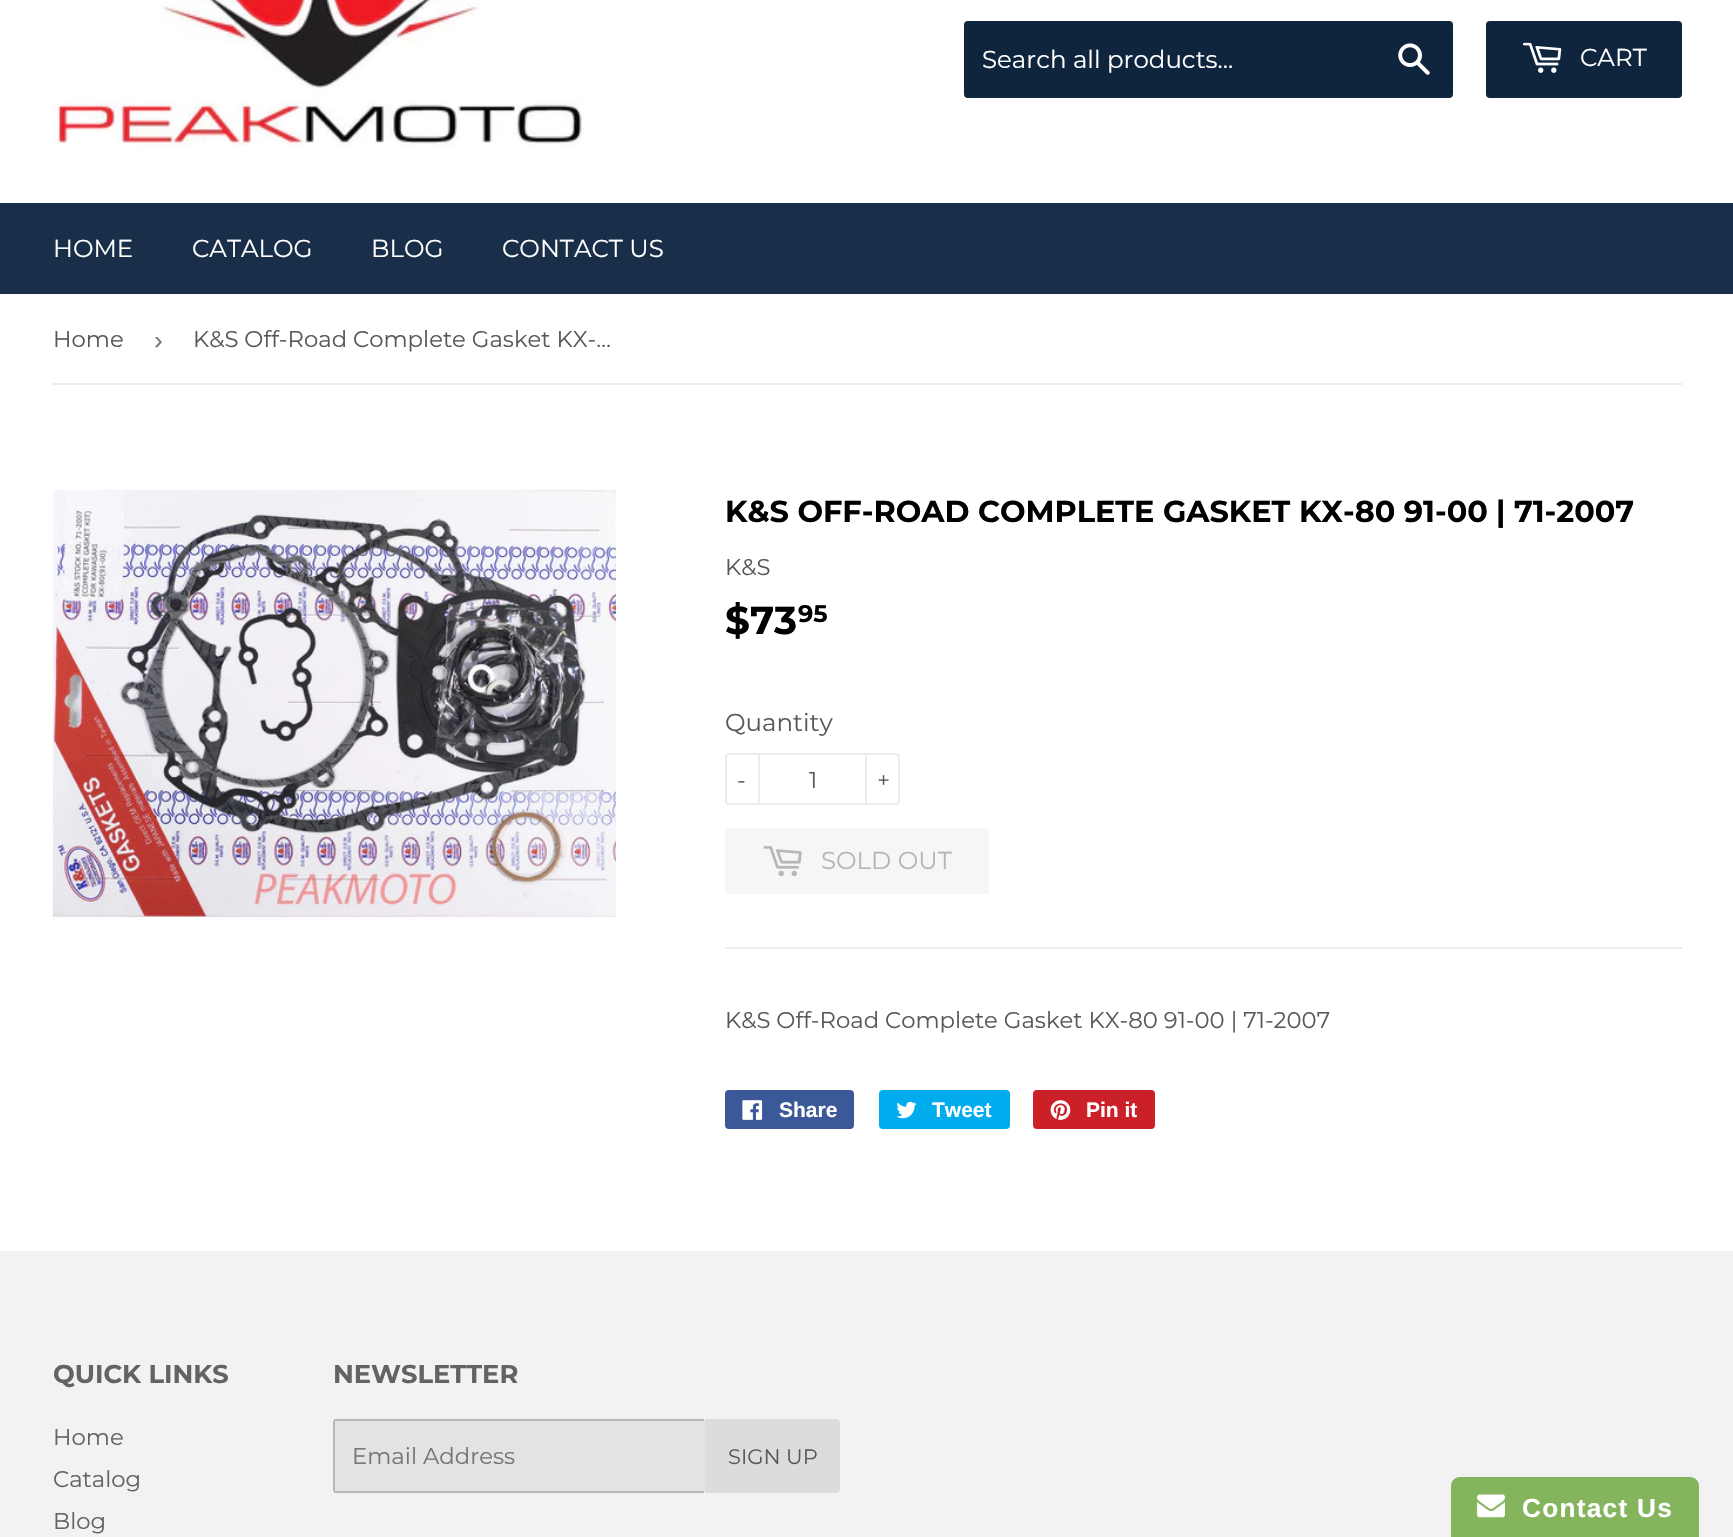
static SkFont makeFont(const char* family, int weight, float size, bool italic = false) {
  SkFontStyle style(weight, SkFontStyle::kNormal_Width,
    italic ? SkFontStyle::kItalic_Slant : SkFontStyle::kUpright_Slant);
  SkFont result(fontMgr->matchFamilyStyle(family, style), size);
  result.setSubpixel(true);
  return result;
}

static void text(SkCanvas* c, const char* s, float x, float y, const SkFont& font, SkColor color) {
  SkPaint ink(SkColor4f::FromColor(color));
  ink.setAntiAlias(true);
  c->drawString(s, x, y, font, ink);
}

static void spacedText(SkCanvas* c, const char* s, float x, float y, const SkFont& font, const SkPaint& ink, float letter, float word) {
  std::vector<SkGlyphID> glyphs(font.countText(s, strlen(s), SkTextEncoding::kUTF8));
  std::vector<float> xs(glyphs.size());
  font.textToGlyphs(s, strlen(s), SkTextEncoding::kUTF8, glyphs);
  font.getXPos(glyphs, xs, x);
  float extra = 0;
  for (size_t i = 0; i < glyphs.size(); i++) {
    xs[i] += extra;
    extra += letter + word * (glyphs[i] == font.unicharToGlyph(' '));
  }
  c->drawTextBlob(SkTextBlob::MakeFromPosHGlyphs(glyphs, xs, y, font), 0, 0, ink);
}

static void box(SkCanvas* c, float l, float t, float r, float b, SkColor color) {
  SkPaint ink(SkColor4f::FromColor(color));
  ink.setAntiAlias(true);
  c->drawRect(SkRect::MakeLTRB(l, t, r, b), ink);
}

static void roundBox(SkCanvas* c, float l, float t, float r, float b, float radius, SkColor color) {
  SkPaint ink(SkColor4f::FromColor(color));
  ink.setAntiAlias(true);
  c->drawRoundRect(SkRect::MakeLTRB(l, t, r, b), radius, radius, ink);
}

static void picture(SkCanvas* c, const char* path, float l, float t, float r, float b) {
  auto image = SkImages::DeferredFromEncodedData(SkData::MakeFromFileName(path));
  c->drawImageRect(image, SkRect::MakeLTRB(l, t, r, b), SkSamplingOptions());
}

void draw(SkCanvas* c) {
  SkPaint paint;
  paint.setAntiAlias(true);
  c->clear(0xffffffff);
  picture(c, "img_01.png", 52, 0, 584, 147);
  roundBox(c, 964, 21, 1453, 98, 4, 0xff0f243d);
  SkFont face1 = makeFont("Montserrat", 400, 24.5f);
  text(c, "Search all products...", 982, 68, face1, 0xffffffff);
  picture(c, "img_02.png", 1398, 43, 1430, 75);
  roundBox(c, 1486, 21, 1682, 98, 4, 0xff0f243d);
  picture(c, "img_03.png", 1522, 42, 1562, 73);
  text(c, "CART", 1580, 66, face1, 0xffffffff);
  box(c, 0, 203, 1733, 294, 0xff182e49);
  text(c, "HOME", 53, 257, face1, 0xffffffff);
  text(c, "CATALOG", 192, 257, face1, 0xffffffff);
  text(c, "BLOG", 371, 257, face1, 0xffffffff);
  text(c, "CONTACT US", 502, 257, face1, 0xffffffff);
  box(c, 53, 383, 1682, 385, 0xffececec);
  SkFont face2 = makeFont("Montserrat", 400, 22.75f);
  text(c, "Home", 53, 347, face2, 0xff585858);
  SkFont face3 = makeFont("Liberation Sans", 400, 26.25f);
  text(c, "›", 154, 349, face3, 0xff767676);
  text(c, "K&S Off-Road Complete Gasket KX-…", 193, 347, face2, 0xff585858);
  picture(c, "img_04.png", 52, 490, 616, 917);
  SkFont face4 = makeFont("Montserrat", 700, 30.3f);
  text(c, "K&S OFF-ROAD COMPLETE GASKET KX-80 91-00", 725, 522, face4, 0xff000000);
  text(c, "| 71-2007", 1496, 522, face4, 0xff000000);
  text(c, "K&S", 725, 575, face2, 0xff585858);
  SkFont face5 = makeFont("Montserrat", 700, 39);
  text(c, "$73", 725, 634, face5, 0xff000000);
  SkFont face6 = makeFont("Montserrat", 700, 24);
  text(c, "95", 798, 622, face6, 0xff000000);
  text(c, "Quantity", 725, 731, face1, 0xff585858);
  paint.setStyle(SkPaint::kStroke_Style);
  paint.setStrokeWidth(2);
  paint.setColor(0xffececec);
  c->drawRoundRect(SkRect::MakeLTRB(726, 754, 899, 804), 3, 3, paint);
  box(c, 758, 753, 760, 805, 0xffececec);
  text(c, "-", 737, 788, face2, 0xff585858);
  text(c, "1", 809, 788, face2, 0xff585858);
  box(c, 865, 753, 867, 805, 0xffececec);
  text(c, "+", 877, 788, face2, 0xff585858);
  roundBox(c, 725, 828, 989, 894, 4, 0xfff6f6f6);
  picture(c, "img_05.png", 763, 846, 802, 877);
  text(c, "SOLD OUT", 821, 869, face1, 0xffb6b6b6);
  box(c, 725, 947, 1682, 949, 0xffececec);
  text(c, "K&S Off-Road Complete Gasket KX-80 91-00 | 71-2007", 725, 1028, face2, 0xff585858);
  roundBox(c, 725, 1090, 854, 1129, 4, 0xff3b5998);
  picture(c, "img_06.png", 742, 1100, 763, 1120);
  SkFont face7 = makeFont("Liberation Sans", 700, 21);
  text(c, "Share", 779, 1117, face7, 0xffffffff);
  roundBox(c, 879, 1090, 1010, 1129, 4, 0xff00aced);
  picture(c, "img_07.png", 896, 1101, 917, 1119);
  text(c, "Tweet", 932, 1117, face7, 0xffffffff);
  roundBox(c, 1033, 1090, 1155, 1129, 4, 0xffcb2027);
  picture(c, "img_08.png", 1050, 1100, 1071, 1120);
  text(c, "Pin it", 1086, 1117, face7, 0xffffffff);
  box(c, 0, 1251, 1733, 1537, 0xfff2f2f2);
  SkFont face8 = makeFont("Montserrat", 700, 25.75f);
  text(c, "QUICK LINKS", 53, 1383, face8, 0xff636363);
  text(c, "Home", 53, 1445, face2, 0xff636363);
  text(c, "Catalog", 53, 1487, face2, 0xff636363);
  text(c, "Blog", 53, 1529, face2, 0xff636363);
  text(c, "NEWSLETTER", 333, 1383, face8, 0xff636363);
  roundBox(c, 333, 1419, 705, 1493, 4, 0xffe3e3e3);
  box(c, 334, 1419, 704, 1421, 0xffb9b9b9);
  box(c, 334, 1491, 704, 1493, 0xffb9b9b9);
  box(c, 333, 1421, 335, 1491, 0xffb9b9b9);
  text(c, "Email Address", 352, 1464, face2, 0xff767676);
  paint.setStyle(SkPaint::kFill_Style);
  paint.setColor(0xffdcdcdc);
  c->drawPath(SkPathBuilder().moveTo(705, 1419).lineTo(836, 1419).cubicTo(838, 1419, 840, 1421, 840, 1423).lineTo(840, 1489).cubicTo(840, 1491, 838, 1493, 836, 1493).lineTo(705, 1493).close().detach(), paint);
  SkFont face9 = makeFont("Montserrat", 400, 21);
  text(c, "SIGN UP", 728, 1464, face9, 0xff585858);
  paint.setColor(0xff84b45b);
  c->drawPath(SkPathBuilder().moveTo(1460, 1477).lineTo(1690, 1477).cubicTo(1695, 1477, 1699, 1481, 1699, 1486).lineTo(1699, 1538).lineTo(1451, 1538).lineTo(1451, 1486).cubicTo(1451, 1481, 1455, 1477, 1460, 1477).close().detach(), paint);
  picture(c, "img_09.png", 1476, 1494, 1505, 1518);
  SkFont face10 = makeFont("Liberation Sans", 700, 26.25f);
  paint.setColor(0xffffffff);
  spacedText(c, "Contact Us", 1522, 1517, face10, paint, 1.25f, 0);
}
